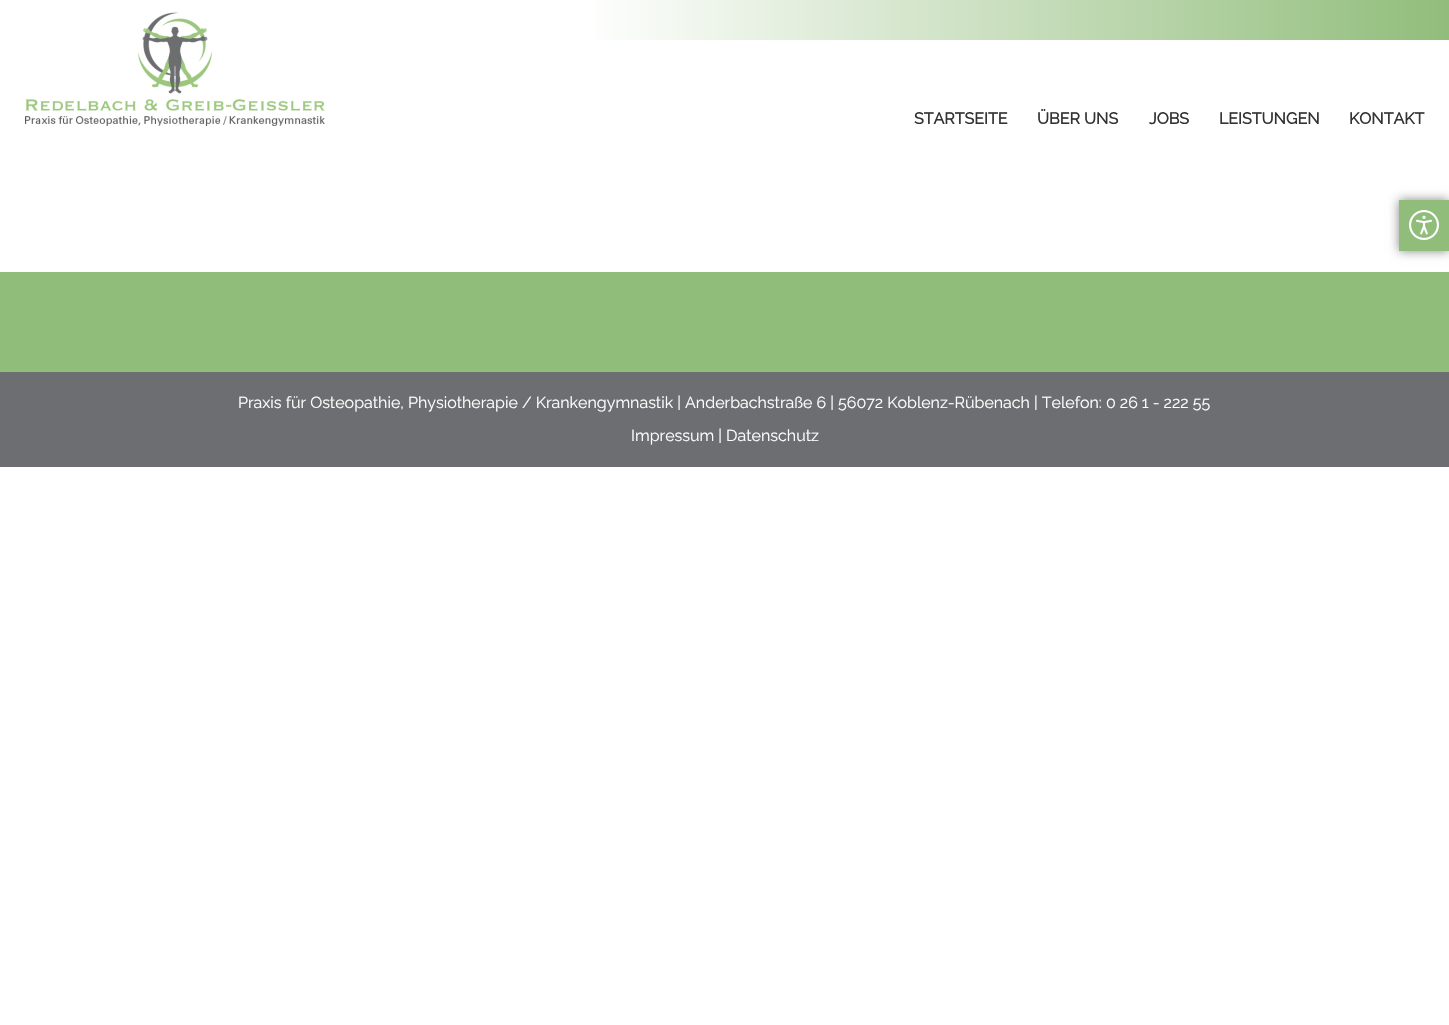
static SkFont makeFont(const char* family, int weight, float size, bool italic = false) {
  SkFontStyle style(weight, SkFontStyle::kNormal_Width,
    italic ? SkFontStyle::kItalic_Slant : SkFontStyle::kUpright_Slant);
  SkFont result(fontMgr->matchFamilyStyle(family, style), size);
  result.setSubpixel(true);
  return result;
}

static void text(SkCanvas* c, const char* s, float x, float y, const SkFont& font, SkColor color) {
  SkPaint ink(SkColor4f::FromColor(color));
  ink.setAntiAlias(true);
  c->drawString(s, x, y, font, ink);
}

static void box(SkCanvas* c, float l, float t, float r, float b, SkColor color) {
  SkPaint ink(SkColor4f::FromColor(color));
  ink.setAntiAlias(true);
  c->drawRect(SkRect::MakeLTRB(l, t, r, b), ink);
}

static void picture(SkCanvas* c, const char* path, float l, float t, float r, float b) {
  auto image = SkImages::DeferredFromEncodedData(SkData::MakeFromFileName(path));
  c->drawImageRect(image, SkRect::MakeLTRB(l, t, r, b), SkSamplingOptions());
}

void draw(SkCanvas* c) {
  SkPaint paint;
  paint.setAntiAlias(true);
  c->clear(0xffffffff);
  {
    const SkColor colors[] = {0xffffffff, 0xff91bd7b};
    const float stops[] = {0.4f, 1};
    const SkPoint ends[] = {{0, 20}, {1449, 20}};
    paint.setShader(SkGradientShader::MakeLinear(ends, colors, stops, 2, SkTileMode::kClamp));
    paint.setAlpha(255);
  }
  c->drawRect(SkRect::MakeLTRB(596, 0, 1449, 40), paint);
  picture(c, "img_01.png", 25, 12, 325, 126);
  SkFont face1 = makeFont("Raleway", 700, 16);
  text(c, "STARTSEITE", 914, 124, face1, 0xff333333);
  text(c, "ÜBER UNS", 1037, 124, face1, 0xff333333);
  text(c, "JOBS", 1149, 124, face1, 0xff333333);
  text(c, "LEISTUNGEN", 1219, 124, face1, 0xff333333);
  text(c, "KONTAKT", 1349, 124, face1, 0xff333333);
  paint.setShader(nullptr);
  paint.setColor(0x78000000);
  paint.setMaskFilter(SkMaskFilter::MakeBlur(kNormal_SkBlurStyle, 5));
  c->drawRect(SkRect::MakeLTRB(1399, 200, 1449, 251), paint);
  paint.setMaskFilter(nullptr);
  box(c, 1399, 200, 1449, 251, 0xff91bd7b);
  picture(c, "img_02.png", 1409, 210, 1439, 240);
  box(c, 0, 372, 1449, 467, 0xff6d6e71);
  box(c, 0, 272, 1449, 372, 0xff91bd7b);
  SkFont face2 = makeFont("Raleway", 100, 16);
  text(c, "Praxis für Osteopathie, Physiotherapie / Krankengymnastik | Anderbachstraße 6 | 56072 Koblenz-Rübenach | Telefon: 0 26 1 - 222 55", 238, 408, face2, 0xffffffff);
  text(c, "Impressum | Datenschutz", 631, 441, face2, 0xffffffff);
}
